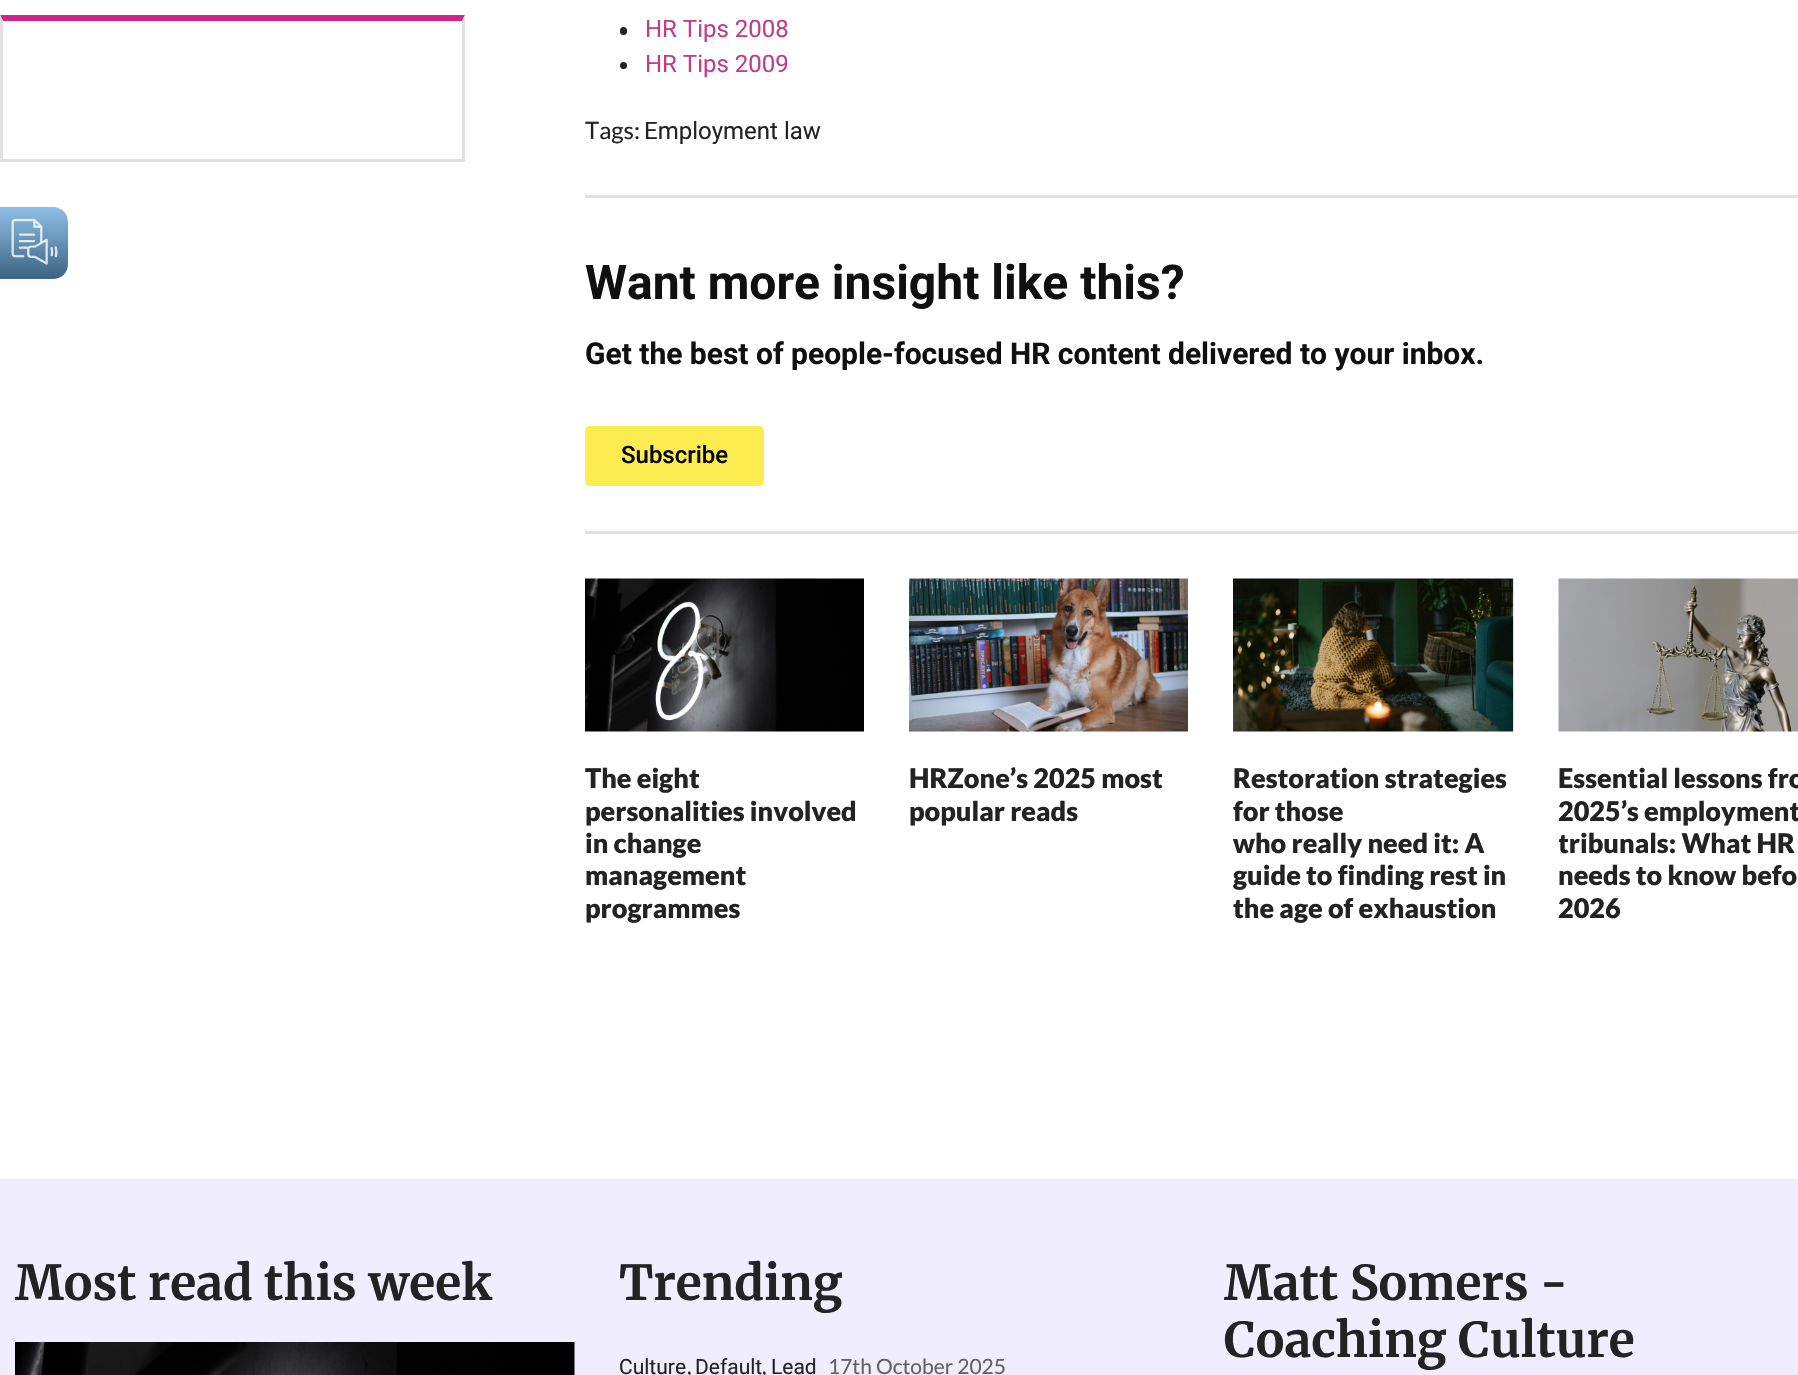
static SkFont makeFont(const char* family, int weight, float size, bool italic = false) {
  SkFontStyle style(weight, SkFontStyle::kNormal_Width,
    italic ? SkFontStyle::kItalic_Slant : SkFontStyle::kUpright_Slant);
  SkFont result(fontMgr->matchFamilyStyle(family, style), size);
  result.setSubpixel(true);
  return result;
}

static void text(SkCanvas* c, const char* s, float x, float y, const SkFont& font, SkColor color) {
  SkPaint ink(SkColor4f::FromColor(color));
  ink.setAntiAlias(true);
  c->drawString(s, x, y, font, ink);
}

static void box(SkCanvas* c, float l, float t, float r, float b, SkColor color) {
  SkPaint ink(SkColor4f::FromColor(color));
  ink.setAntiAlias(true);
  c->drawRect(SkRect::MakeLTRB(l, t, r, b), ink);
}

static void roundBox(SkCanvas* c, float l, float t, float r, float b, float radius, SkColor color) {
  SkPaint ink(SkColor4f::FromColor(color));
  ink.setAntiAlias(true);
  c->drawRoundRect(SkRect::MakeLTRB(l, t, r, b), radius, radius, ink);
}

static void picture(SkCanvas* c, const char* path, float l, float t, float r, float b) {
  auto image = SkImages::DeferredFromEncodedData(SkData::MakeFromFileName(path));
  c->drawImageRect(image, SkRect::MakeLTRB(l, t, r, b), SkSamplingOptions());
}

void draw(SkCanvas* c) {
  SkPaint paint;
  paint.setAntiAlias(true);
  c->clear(0xffffffff);
  {
    const SkColor colors[] = {0xff8fbfe6, 0xff3c6382};
    const float stops[] = {0, 1};
    const SkPoint ends[] = {{34, 207}, {34, 279}};
    paint.setShader(SkGradientShader::MakeLinear(ends, colors, stops, 2, SkTileMode::kClamp));
    paint.setAlpha(255);
  }
  c->drawPath(SkPathBuilder().moveTo(0, 207).lineTo(53, 207).cubicTo(61.5f, 207, 68, 213.5f, 68, 222).lineTo(68, 264).cubicTo(68, 272.5f, 61.5f, 279, 53, 279).lineTo(0, 279).close().detach(), paint);
  picture(c, "img_01.png", 11, 218, 58, 265);
  paint.setShader(nullptr);
  paint.setColor(0xffd0248a);
  c->drawPath(SkPathBuilder().moveTo(0, 15).lineTo(465, 15).lineTo(462, 21).lineTo(3, 21).close().detach(), paint);
  paint.setColor(0xffe0e0e0);
  c->drawPath(SkPathBuilder().moveTo(465, 15).lineTo(465, 162).lineTo(462, 159).lineTo(462, 21).close().detach(), paint);
  box(c, 0, 159, 465, 162, 0xffe0e0e0);
  c->drawPath(SkPathBuilder().moveTo(0, 162).lineTo(0, 15).lineTo(3, 21).lineTo(3, 159).close().detach(), paint);
  roundBox(c, 620, 27, 627, 35, 3.5f, 0xff232323);
  SkFont face1 = makeFont("Roboto", 400, 24);
  text(c, "HR Tips 2008", 645, 37, face1, 0xffbd3f85);
  paint.setColor(0xff232323);
  c->drawCircle(623.5f, 65.5f, 3.5f, paint);
  text(c, "HR Tips 2009", 645, 72, face1, 0xffbd3f85);
  SkFont face2 = makeFont("Lato", 400, 24);
  text(c, "Tags:", 585, 139, face2, 0xff232323);
  text(c, "Employment law", 644, 139, face1, 0xff232323);
  box(c, 585, 195, 1798, 198, 0xffe0e0e0);
  SkFont face3 = makeFont("Roboto", 700, 48);
  text(c, "Want more insight like this?", 585, 299, face3, 0xff101010);
  SkFont face4 = makeFont("Roboto", 700, 30);
  text(c, "Get the best of people-focused HR content delivered to your inbox.", 585, 364, face4, 0xff101010);
  roundBox(c, 585, 426, 764, 486, 5, 0xfffdec4f);
  SkFont face5 = makeFont("Roboto", 500, 24);
  text(c, "Subscribe", 621, 463, face5, 0xff000000);
  box(c, 585, 531, 1798, 534, 0xffe0e0e0);
  picture(c, "img_02.png", 585, 578, 864, 732);
  c->save();
  c->clipRect(SkRect::MakeLTRB(585, 579, 864, 924));
  SkFont face6 = makeFont("Lato", 900, 27);
  text(c, "The eight", 585, 788, face6, 0xff232323);
  c->restore();
  text(c, "personalities involved", 585, 821, face6, 0xff232323);
  text(c, "in change", 585, 853, face6, 0xff232323);
  text(c, "management", 585, 885, face6, 0xff232323);
  text(c, "programmes", 585, 918, face6, 0xff232323);
  picture(c, "img_03.png", 909, 578, 1188, 732);
  text(c, "HRZone’s 2025 most", 909, 788, face6, 0xff232323);
  text(c, "popular reads", 909, 821, face6, 0xff232323);
  picture(c, "img_04.png", 1233, 578, 1514, 732);
  text(c, "Restoration strategies", 1233, 788, face6, 0xff232323);
  text(c, "for those", 1233, 821, face6, 0xff232323);
  text(c, "who really need it: A", 1233, 853, face6, 0xff232323);
  text(c, "guide to finding rest in", 1233, 885, face6, 0xff232323);
  text(c, "the age of exhaustion", 1233, 918, face6, 0xff232323);
  picture(c, "img_05.png", 1558, 578, 1798, 732);
  text(c, "Essential lessons fro", 1558, 788, face6, 0xff232323);
  text(c, "2025’s employment", 1558, 821, face6, 0xff232323);
  c->save();
  c->clipRect(SkRect::MakeLTRB(1559, 579, 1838, 924));
  text(c, "tribunals: What HR", 1558, 853, face6, 0xff232323);
  c->restore();
  text(c, "needs to know befo", 1558, 885, face6, 0xff232323);
  text(c, "2026", 1558, 918, face6, 0xff232323);
  box(c, 0, 1179, 1798, 1375, 0xfff0edff);
  SkFont face7 = makeFont("Merriweather", 700, 48);
  text(c, "Most read this week", 15, 1300, face7, 0xff232323);
  picture(c, "img_06.png", 15, 1342, 575, 1375);
  text(c, "Trending", 619, 1300, face7, 0xff232323);
  SkFont face8 = makeFont("Roboto", 400, 21);
  text(c, "Culture", 619, 1374, face8, 0xff232323);
  SkFont face9 = makeFont("Lato", 400, 21);
  text(c, ",", 687, 1374, face9, 0xff232323);
  text(c, "Default", 695, 1374, face8, 0xff232323);
  text(c, ",", 762, 1374, face9, 0xff232323);
  text(c, "Lead", 771, 1374, face8, 0xff232323);
  text(c, "17th October 2025", 828, 1374, face9, 0xff616161);
  text(c, "Matt Somers -", 1224, 1300, face7, 0xff232323);
  text(c, "Coaching Culture", 1224, 1357, face7, 0xff232323);
}
